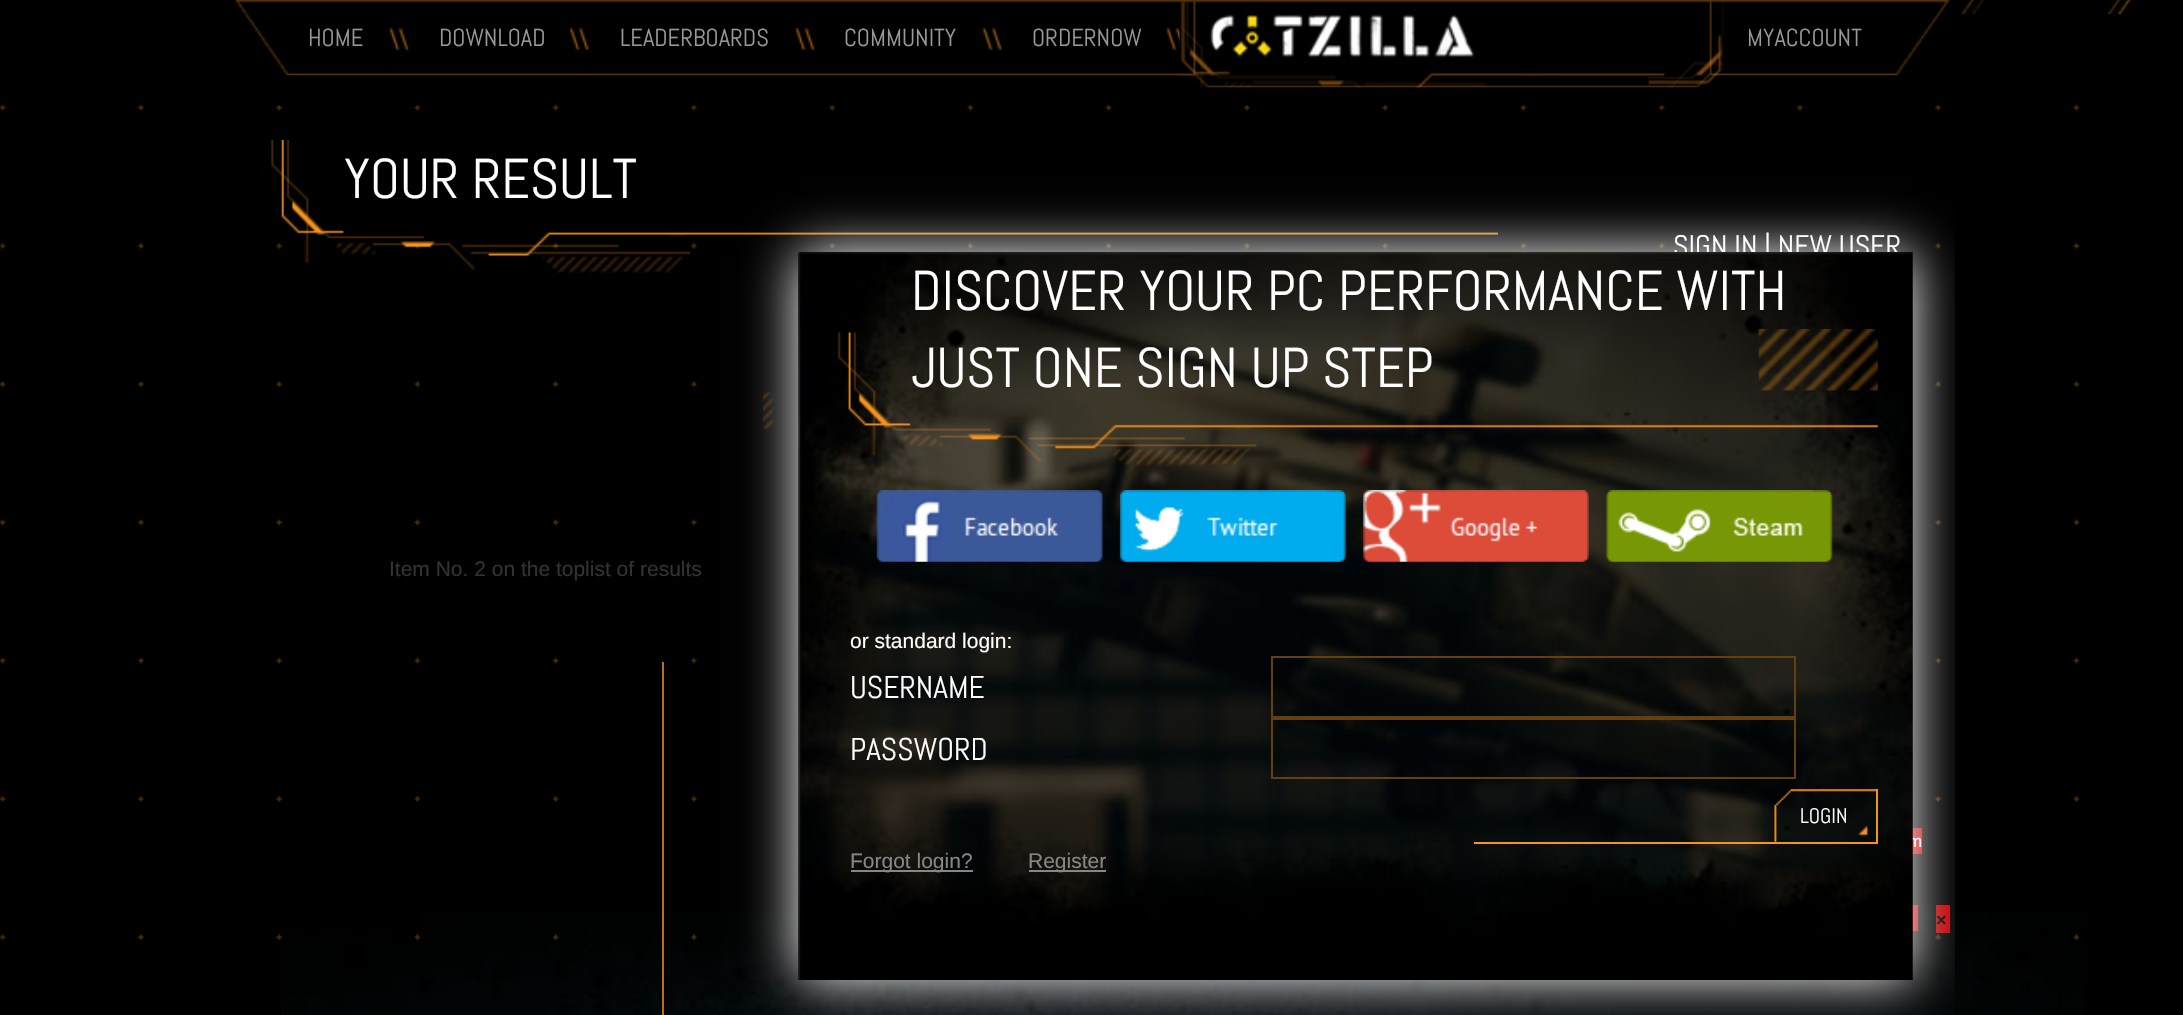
static SkFont makeFont(const char* family, int weight, float size, bool italic = false) {
  SkFontStyle style(weight, SkFontStyle::kNormal_Width,
    italic ? SkFontStyle::kItalic_Slant : SkFontStyle::kUpright_Slant);
  SkFont result(fontMgr->matchFamilyStyle(family, style), size);
  result.setSubpixel(true);
  return result;
}

static void text(SkCanvas* c, const char* s, float x, float y, const SkFont& font, SkColor color) {
  SkPaint ink(SkColor4f::FromColor(color));
  ink.setAntiAlias(true);
  c->drawString(s, x, y, font, ink);
}

static void box(SkCanvas* c, float l, float t, float r, float b, SkColor color) {
  SkPaint ink(SkColor4f::FromColor(color));
  ink.setAntiAlias(true);
  c->drawRect(SkRect::MakeLTRB(l, t, r, b), ink);
}

static void picture(SkCanvas* c, const char* path, float l, float t, float r, float b) {
  auto image = SkImages::DeferredFromEncodedData(SkData::MakeFromFileName(path));
  c->drawImageRect(image, SkRect::MakeLTRB(l, t, r, b), SkSamplingOptions());
}

void draw(SkCanvas* c) {
  SkPaint paint;
  paint.setAntiAlias(true);
  c->clear(0xff000000);
  picture(c, "img_01.png", 281, 911, 2085, 1015);
  picture(c, "img_02.png", 1961, 0, 2132, 14);
  picture(c, "img_03.png", 234, 0, 1950, 76);
  picture(c, "img_08.png", 1165, 28, 1180, 51);
  picture(c, "img_04.png", 1179, 0, 1724, 88);
  picture(c, "img_05.png", 388, 28, 409, 51);
  SkFont face1 = makeFont("Abel", 400, 24.5f);
  text(c, "HOME", 308, 46, face1, 0xff999999);
  picture(c, "img_06.png", 569, 28, 590, 51);
  text(c, "DOWNLOAD", 439, 46, face1, 0xff999999);
  picture(c, "img_07.png", 794, 28, 815, 51);
  text(c, "LEADERBOARDS", 620, 46, face1, 0xff999999);
  picture(c, "img_06.png", 982, 28, 1003, 51);
  text(c, "COMMUNITY", 844, 46, face1, 0xff999999);
  text(c, "ORDERNOW", 1032, 46, face1, 0xff999999);
  text(c, "MYACCOUNT", 1747, 46, face1, 0xff999999);
  picture(c, "img_09.png", 0, 105, 2080, 941);
  picture(c, "img_10.png", 271, 140, 1498, 273);
  SkFont face2 = makeFont("Abel", 400, 56);
  text(c, "YOUR RESULT", 344, 198, face2, 0xffffffff);
  SkFont face3 = makeFont("Liberation Sans", 400, 21);
  text(c, "Item No. 2 on the toplist of results", 389, 576, face3, 0xff333333);
  box(c, 662, 662, 664, 1015, 0xffbb7016);
  SkFont face4 = makeFont("Abel", 400, 29.75f);
  text(c, "SIGN IN | NEW USER", 1673, 256, face4, 0xffffffff);
  box(c, 1912, 828, 1922, 854, 0xffc00000);
  SkFont face5 = makeFont("Liberation Sans", 400, 17);
  text(c, "m", 1908, 847, face5, 0xffffffff);
  box(c, 1936, 905, 1950, 933, 0xffc00000);
  SkFont face6 = makeFont("Liberation Sans", 700, 18);
  text(c, "×", 1936, 926, face6, 0xff000000);
  box(c, 1912, 905, 1918, 931, 0xffc00000);
  c->save();
  c->clipRect(SkRect::MakeLTRB(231, 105, 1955, 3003));
  paint.setColor(0xffffffff);
  paint.setMaskFilter(SkMaskFilter::MakeBlur(kNormal_SkBlurStyle, 26));
  c->drawRect(SkRect::MakeLTRB(798, 252, 1913, 980), paint);
  paint.setMaskFilter(nullptr);
  c->restore();
  picture(c, "img_11.png", 798, 252, 1913, 980);
  picture(c, "img_12.png", 763, 329, 1878, 466);
  text(c, "DISCOVER YOUR PC PERFORMANCE WITH", 911, 310, face2, 0xffffffff);
  text(c, "JUST ONE SIGN UP STEP", 911, 387, face2, 0xffffffff);
  picture(c, "img_13.png", 876, 490, 1103, 562);
  picture(c, "img_14.png", 1120, 490, 1346, 562);
  picture(c, "img_15.png", 1363, 490, 1589, 562);
  picture(c, "img_16.png", 1606, 490, 1833, 562);
  text(c, "or standard login:", 850, 648, face3, 0xffffffff);
  SkFont face7 = makeFont("Abel", 400, 31.5f);
  text(c, "USERNAME", 850, 698, face7, 0xffffffff);
  paint.setStyle(SkPaint::kStroke_Style);
  paint.setStrokeWidth(2);
  paint.setColor(0xff644010);
  c->drawRect(SkRect::MakeLTRB(1272, 657, 1795, 717), paint);
  text(c, "PASSWORD", 850, 760, face7, 0xffffffff);
  c->drawRect(SkRect::MakeLTRB(1272, 719, 1795, 778), paint);
  picture(c, "img_17.png", 1858, 826, 1868, 836);
  box(c, 1876, 789, 1878, 844, 0xfff7941d);
  box(c, 1474, 842, 1878, 844, 0xfff7941d);
  picture(c, "img_18.png", 1774, 789, 1876, 842);
  SkFont face8 = makeFont("Abel", 400, 21);
  text(c, "LOGIN", 1800, 823, face8, 0xffffffff);
  box(c, 851, 870, 973, 872, 0xff878787);
  text(c, "Forgot login?", 850, 868, face3, 0xff878787);
  box(c, 1029, 870, 1106, 872, 0xff878787);
  text(c, "Register", 1028, 868, face3, 0xff878787);
}
